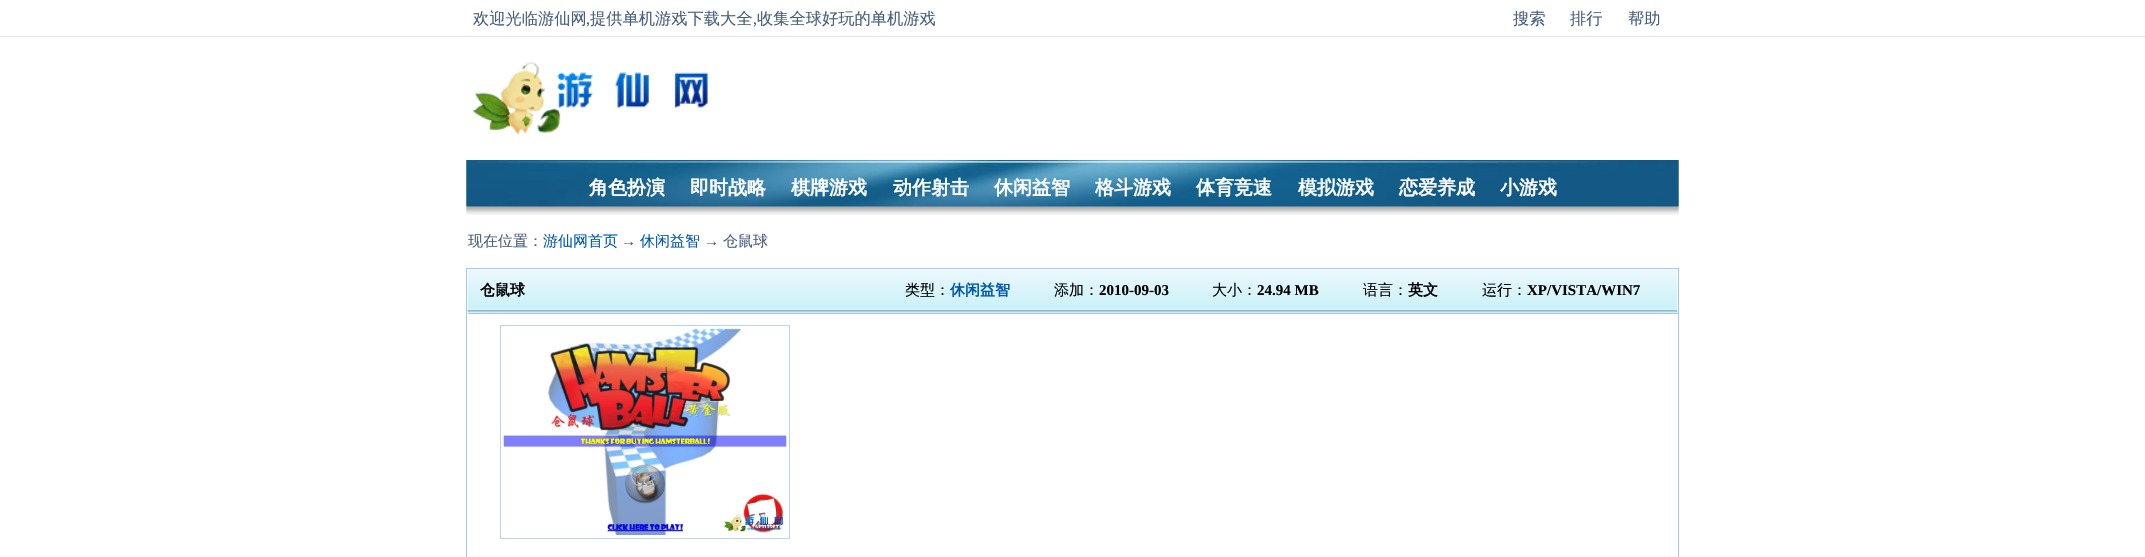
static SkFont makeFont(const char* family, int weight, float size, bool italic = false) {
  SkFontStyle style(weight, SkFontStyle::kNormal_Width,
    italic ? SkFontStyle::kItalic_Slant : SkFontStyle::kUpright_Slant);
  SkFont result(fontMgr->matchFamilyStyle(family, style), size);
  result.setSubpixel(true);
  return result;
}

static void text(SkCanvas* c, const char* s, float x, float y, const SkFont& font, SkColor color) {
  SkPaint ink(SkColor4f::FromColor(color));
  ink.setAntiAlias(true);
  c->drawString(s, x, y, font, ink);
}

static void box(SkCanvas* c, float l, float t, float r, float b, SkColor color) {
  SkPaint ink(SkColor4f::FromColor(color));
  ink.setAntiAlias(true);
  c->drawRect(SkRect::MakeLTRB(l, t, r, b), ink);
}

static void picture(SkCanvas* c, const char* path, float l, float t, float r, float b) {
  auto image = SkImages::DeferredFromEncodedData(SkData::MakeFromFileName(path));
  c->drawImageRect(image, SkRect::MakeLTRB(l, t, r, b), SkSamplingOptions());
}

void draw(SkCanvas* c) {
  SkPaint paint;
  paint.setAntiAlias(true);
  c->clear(0xffffffff);
  box(c, 0, 36, 2145, 37, 0xffdee7f2);
  SkFont face1 = makeFont("WenQuanYi Zen Hei", 500, 16.25f);
  text(c, "欢迎光临游仙网", 473, 24, face1, 0xff475e7d);
  SkFont face2 = makeFont("Liberation Serif", 400, 16.25f);
  text(c, ",", 586, 24, face2, 0xff475e7d);
  text(c, "提供单机游戏下载大全", 590, 24, face1, 0xff475e7d);
  text(c, ",", 753, 24, face2, 0xff475e7d);
  text(c, "收集全球好玩的单机游戏", 757, 24, face1, 0xff475e7d);
  text(c, "搜索", 1513, 24, face1, 0xff475e7d);
  text(c, "排行", 1570, 24, face1, 0xff475e7d);
  text(c, "帮助", 1628, 24, face1, 0xff475e7d);
  picture(c, "img_01.png", 472, 61, 708, 135);
  picture(c, "img_02.png", 466, 160, 1679, 215);
  picture(c, "img_03.png", 467, 160, 1678, 207);
  SkFont face3 = makeFont("WenQuanYi Zen Hei", 700, 19);
  text(c, "角色扮演", 589, 194, face3, 0xfffdfefc);
  text(c, "即时战略", 690, 194, face3, 0xfffdfefc);
  text(c, "棋牌游戏", 791, 194, face3, 0xfffdfefc);
  text(c, "动作射击", 893, 194, face3, 0xfffdfefc);
  text(c, "休闲益智", 994, 194, face3, 0xfffdfefc);
  text(c, "格斗游戏", 1095, 194, face3, 0xfffdfefc);
  text(c, "体育竞速", 1196, 194, face3, 0xfffdfefc);
  text(c, "模拟游戏", 1298, 194, face3, 0xfffdfefc);
  text(c, "恋爱养成", 1399, 194, face3, 0xfffdfefc);
  text(c, "小游戏", 1500, 194, face3, 0xfffdfefc);
  c->save();
  c->clipRect(SkRect::MakeLTRB(468, 216, 1678, 266));
  SkFont face4 = makeFont("WenQuanYi Zen Hei", 500, 15);
  text(c, "现在位置：", 468, 246, face4, 0xff475e7d);
  c->restore();
  text(c, "游仙网首页", 543, 246, face4, 0xff0058b3);
  SkFont face5 = makeFont("Liberation Serif", 400, 15);
  text(c, "→", 621, 246, face5, 0xff475e7d);
  text(c, "休闲益智", 640, 246, face4, 0xff0058b3);
  text(c, "→", 704, 246, face5, 0xff475e7d);
  text(c, "仓鼠球", 723, 246, face4, 0xff475e7d);
  paint.setStyle(SkPaint::kStroke_Style);
  paint.setStrokeWidth(1);
  paint.setColor(0xffa0c6ff);
  c->drawRect(SkRect::MakeLTRB(466.5f, 268.5f, 1678.5f, 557.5f), paint);
  picture(c, "img_04.png", 467, 268, 1678, 313);
  box(c, 468, 313, 1678, 314, 0xffa0c6ff);
  SkFont face6 = makeFont("WenQuanYi Zen Hei", 700, 15);
  text(c, "仓鼠球", 480, 295, face6, 0xff000000);
  text(c, "类型：", 905, 295, face4, 0xff000000);
  text(c, "休闲益智", 950, 295, face6, 0xff0058b3);
  text(c, "添加：", 1054, 295, face4, 0xff000000);
  SkFont face7 = makeFont("Liberation Serif", 700, 15);
  text(c, "2010-09-03", 1099, 295, face7, 0xff000000);
  text(c, "大小：", 1212, 295, face4, 0xff000000);
  text(c, "24.94 MB", 1257, 295, face7, 0xff000000);
  text(c, "语言：", 1363, 295, face4, 0xff000000);
  text(c, "英文", 1408, 295, face6, 0xff000000);
  text(c, "运行：", 1482, 295, face4, 0xff000000);
  text(c, "XP/VISTA/WIN7", 1527, 295, face7, 0xff000000);
  paint.setColor(0xffb8d4e9);
  c->drawRect(SkRect::MakeLTRB(500.5f, 325.5f, 789.5f, 538.5f), paint);
  picture(c, "img_05.png", 503, 328, 787, 535);
}
